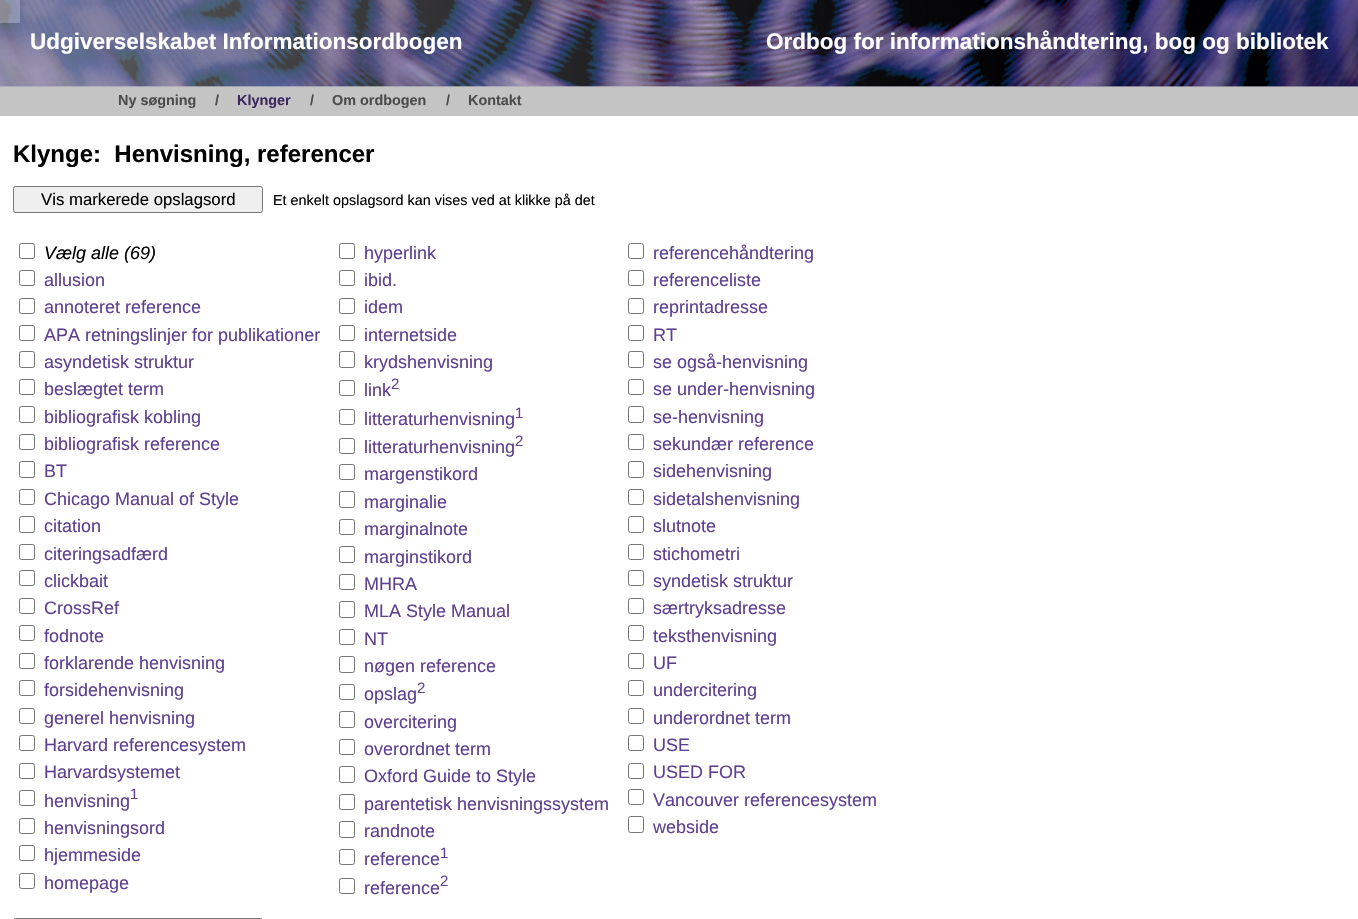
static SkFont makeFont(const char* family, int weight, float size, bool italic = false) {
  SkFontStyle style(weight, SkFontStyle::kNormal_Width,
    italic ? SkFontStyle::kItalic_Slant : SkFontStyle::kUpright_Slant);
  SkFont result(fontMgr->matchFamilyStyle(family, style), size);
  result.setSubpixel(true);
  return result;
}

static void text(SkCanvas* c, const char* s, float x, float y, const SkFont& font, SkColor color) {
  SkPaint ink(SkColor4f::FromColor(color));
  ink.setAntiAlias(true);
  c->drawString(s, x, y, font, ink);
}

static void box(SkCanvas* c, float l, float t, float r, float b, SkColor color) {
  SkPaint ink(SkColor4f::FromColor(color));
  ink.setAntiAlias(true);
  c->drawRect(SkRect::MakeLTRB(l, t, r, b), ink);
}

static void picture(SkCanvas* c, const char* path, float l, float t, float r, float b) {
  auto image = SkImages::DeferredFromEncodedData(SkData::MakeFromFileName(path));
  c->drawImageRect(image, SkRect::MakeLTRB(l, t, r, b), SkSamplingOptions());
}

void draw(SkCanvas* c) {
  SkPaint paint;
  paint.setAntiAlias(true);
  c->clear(0xffffffff);
  box(c, 0, 86, 1358, 116, 0xffc4c4c4);
  picture(c, "img_01.png", 0, 0, 1358, 87);
  box(c, 0, 0, 20, 23, 0x59dcd9f4);
  SkFont face1 = makeFont("Liberation Sans", 700, 22.5f);
  text(c, "Udgiverselskabet Informationsordbogen", 30, 49, face1, 0xffffffff);
  text(c, "Ordbog for informationshåndtering, bog og bibliotek", 766, 49, face1, 0xffffffff);
  SkFont face2 = makeFont("Liberation Sans", 700, 14.4f);
  text(c, "Ny søgning", 118, 105, face2, 0xff4c4c4c);
  text(c, "/", 215, 105, face2, 0xff4c4c4c);
  text(c, "Klynger", 237, 105, face2, 0xff3c295e);
  text(c, "/", 310, 105, face2, 0xff4c4c4c);
  text(c, "Om ordbogen", 332, 105, face2, 0xff4c4c4c);
  text(c, "/", 446, 105, face2, 0xff4c4c4c);
  text(c, "Kontakt", 468, 105, face2, 0xff4c4c4c);
  SkFont face3 = makeFont("Liberation Sans", 700, 24);
  text(c, "Klynge:  Henvisning, referencer", 13, 162, face3, 0xff000000);
  paint.setColor(0xffefefef);
  c->drawRoundRect(SkRect::MakeLTRB(13.5f, 186.5f, 262.5f, 212.5f), 2, 2, paint);
  paint.setStyle(SkPaint::kStroke_Style);
  paint.setStrokeWidth(1);
  paint.setColor(0xff767676);
  c->drawRoundRect(SkRect::MakeLTRB(13.5f, 186.5f, 262.5f, 212.5f), 2, 2, paint);
  SkFont face4 = makeFont("Liberation Sans", 400, 16.75f);
  text(c, "Vis markerede opslagsord", 41, 205, face4, 0xff000000);
  SkFont face5 = makeFont("Liberation Sans", 400, 14.4f);
  text(c, "Et enkelt opslagsord kan vises ved at klikke på det", 273, 205, face5, 0xff000000);
  c->drawRoundRect(SkRect::MakeLTRB(19.5f, 243.5f, 34.5f, 258.5f), 2, 2, paint);
  SkFont face6 = makeFont("Liberation Sans", 400, 18, true);
  text(c, "Vælg alle (69)", 44, 259, face6, 0xff000000);
  c->drawRoundRect(SkRect::MakeLTRB(19.5f, 270.5f, 34.5f, 285.5f), 2, 2, paint);
  SkFont face7 = makeFont("Liberation Sans", 400, 18);
  text(c, "allusion", 44, 286, face7, 0xff5e4090);
  c->drawRoundRect(SkRect::MakeLTRB(19.5f, 298.5f, 34.5f, 313.5f), 2, 2, paint);
  text(c, "annoteret reference", 44, 313, face7, 0xff5e4090);
  c->drawRoundRect(SkRect::MakeLTRB(19.5f, 325.5f, 34.5f, 340.5f), 2, 2, paint);
  text(c, "APA retningslinjer for publikationer", 44, 341, face7, 0xff5e4090);
  c->drawRoundRect(SkRect::MakeLTRB(19.5f, 351.5f, 34.5f, 367.5f), 2, 2, paint);
  text(c, "asyndetisk struktur", 44, 368, face7, 0xff5e4090);
  c->drawRoundRect(SkRect::MakeLTRB(19.5f, 379.5f, 34.5f, 394.5f), 2, 2, paint);
  text(c, "beslægtet term", 44, 395, face7, 0xff5e4090);
  c->drawRoundRect(SkRect::MakeLTRB(19.5f, 406.5f, 34.5f, 422.5f), 2, 2, paint);
  text(c, "bibliografisk kobling", 44, 423, face7, 0xff5e4090);
  c->drawRoundRect(SkRect::MakeLTRB(19.5f, 434.5f, 34.5f, 449.5f), 2, 2, paint);
  text(c, "bibliografisk reference", 44, 450, face7, 0xff5e4090);
  c->drawRoundRect(SkRect::MakeLTRB(19.5f, 461.5f, 34.5f, 477.5f), 2, 2, paint);
  text(c, "BT", 44, 477, face7, 0xff5e4090);
  c->drawRoundRect(SkRect::MakeLTRB(19.5f, 489.5f, 34.5f, 504.5f), 2, 2, paint);
  text(c, "Chicago Manual of Style", 44, 505, face7, 0xff5e4090);
  c->drawRoundRect(SkRect::MakeLTRB(19.5f, 516.5f, 34.5f, 532.5f), 2, 2, paint);
  text(c, "citation", 44, 532, face7, 0xff5e4090);
  c->drawRoundRect(SkRect::MakeLTRB(19.5f, 544.5f, 34.5f, 559.5f), 2, 2, paint);
  text(c, "citeringsadfærd", 44, 560, face7, 0xff5e4090);
  c->drawRoundRect(SkRect::MakeLTRB(19.5f, 570.5f, 34.5f, 585.5f), 2, 2, paint);
  text(c, "clickbait", 44, 587, face7, 0xff5e4090);
  c->drawRoundRect(SkRect::MakeLTRB(19.5f, 598.5f, 34.5f, 613.5f), 2, 2, paint);
  text(c, "CrossRef", 44, 614, face7, 0xff5e4090);
  c->drawRoundRect(SkRect::MakeLTRB(19.5f, 625.5f, 34.5f, 640.5f), 2, 2, paint);
  text(c, "fodnote", 44, 642, face7, 0xff5e4090);
  c->drawRoundRect(SkRect::MakeLTRB(19.5f, 653.5f, 34.5f, 668.5f), 2, 2, paint);
  text(c, "forklarende henvisning", 44, 669, face7, 0xff5e4090);
  c->drawRoundRect(SkRect::MakeLTRB(19.5f, 680.5f, 34.5f, 695.5f), 2, 2, paint);
  text(c, "forsidehenvisning", 44, 696, face7, 0xff5e4090);
  c->drawRoundRect(SkRect::MakeLTRB(19.5f, 708.5f, 34.5f, 723.5f), 2, 2, paint);
  text(c, "generel henvisning", 44, 724, face7, 0xff5e4090);
  c->drawRoundRect(SkRect::MakeLTRB(19.5f, 735.5f, 34.5f, 750.5f), 2, 2, paint);
  text(c, "Harvard referencesystem", 44, 751, face7, 0xff5e4090);
  c->drawRoundRect(SkRect::MakeLTRB(19.5f, 763.5f, 34.5f, 778.5f), 2, 2, paint);
  text(c, "Harvardsystemet", 44, 778, face7, 0xff5e4090);
  c->drawRoundRect(SkRect::MakeLTRB(19.5f, 790.5f, 34.5f, 805.5f), 2, 2, paint);
  text(c, "henvisning", 44, 807, face7, 0xff5e4090);
  SkFont face8 = makeFont("Liberation Sans", 400, 15);
  text(c, "1", 130, 799, face8, 0xff5e4090);
  c->drawRoundRect(SkRect::MakeLTRB(19.5f, 818.5f, 34.5f, 833.5f), 2, 2, paint);
  text(c, "henvisningsord", 44, 834, face7, 0xff5e4090);
  c->drawRoundRect(SkRect::MakeLTRB(19.5f, 845.5f, 34.5f, 860.5f), 2, 2, paint);
  text(c, "hjemmeside", 44, 861, face7, 0xff5e4090);
  c->drawRoundRect(SkRect::MakeLTRB(19.5f, 873.5f, 34.5f, 888.5f), 2, 2, paint);
  text(c, "homepage", 44, 889, face7, 0xff5e4090);
  c->drawRoundRect(SkRect::MakeLTRB(339.5f, 243.5f, 354.5f, 258.5f), 2, 2, paint);
  text(c, "hyperlink", 364, 259, face7, 0xff5e4090);
  c->drawRoundRect(SkRect::MakeLTRB(339.5f, 270.5f, 354.5f, 285.5f), 2, 2, paint);
  text(c, "ibid.", 364, 286, face7, 0xff5e4090);
  c->drawRoundRect(SkRect::MakeLTRB(339.5f, 298.5f, 354.5f, 313.5f), 2, 2, paint);
  text(c, "idem", 364, 313, face7, 0xff5e4090);
  c->drawRoundRect(SkRect::MakeLTRB(339.5f, 325.5f, 354.5f, 340.5f), 2, 2, paint);
  text(c, "internetside", 364, 341, face7, 0xff5e4090);
  c->drawRoundRect(SkRect::MakeLTRB(339.5f, 351.5f, 354.5f, 367.5f), 2, 2, paint);
  text(c, "krydshenvisning", 364, 368, face7, 0xff5e4090);
  c->drawRoundRect(SkRect::MakeLTRB(339.5f, 380.5f, 354.5f, 395.5f), 2, 2, paint);
  text(c, "link", 364, 396, face7, 0xff5e4090);
  text(c, "2", 391, 389, face8, 0xff5e4090);
  c->drawRoundRect(SkRect::MakeLTRB(339.5f, 409.5f, 354.5f, 424.5f), 2, 2, paint);
  text(c, "litteraturhenvisning", 364, 425, face7, 0xff5e4090);
  text(c, "1", 515, 418, face8, 0xff5e4090);
  c->drawRoundRect(SkRect::MakeLTRB(339.5f, 438.5f, 354.5f, 453.5f), 2, 2, paint);
  text(c, "litteraturhenvisning", 364, 453, face7, 0xff5e4090);
  text(c, "2", 515, 446, face8, 0xff5e4090);
  c->drawRoundRect(SkRect::MakeLTRB(339.5f, 464.5f, 354.5f, 479.5f), 2, 2, paint);
  text(c, "margenstikord", 364, 480, face7, 0xff5e4090);
  c->drawRoundRect(SkRect::MakeLTRB(339.5f, 491.5f, 354.5f, 507.5f), 2, 2, paint);
  text(c, "marginalie", 364, 508, face7, 0xff5e4090);
  c->drawRoundRect(SkRect::MakeLTRB(339.5f, 519.5f, 354.5f, 534.5f), 2, 2, paint);
  text(c, "marginalnote", 364, 535, face7, 0xff5e4090);
  c->drawRoundRect(SkRect::MakeLTRB(339.5f, 546.5f, 354.5f, 562.5f), 2, 2, paint);
  text(c, "marginstikord", 364, 563, face7, 0xff5e4090);
  c->drawRoundRect(SkRect::MakeLTRB(339.5f, 574.5f, 354.5f, 589.5f), 2, 2, paint);
  text(c, "MHRA", 364, 590, face7, 0xff5e4090);
  c->drawRoundRect(SkRect::MakeLTRB(339.5f, 601.5f, 354.5f, 617.5f), 2, 2, paint);
  text(c, "MLA Style Manual", 364, 617, face7, 0xff5e4090);
  c->drawRoundRect(SkRect::MakeLTRB(339.5f, 629.5f, 354.5f, 644.5f), 2, 2, paint);
  text(c, "NT", 364, 645, face7, 0xff5e4090);
  c->drawRoundRect(SkRect::MakeLTRB(339.5f, 656.5f, 354.5f, 672.5f), 2, 2, paint);
  text(c, "nøgen reference", 364, 672, face7, 0xff5e4090);
  c->drawRoundRect(SkRect::MakeLTRB(339.5f, 684.5f, 354.5f, 699.5f), 2, 2, paint);
  text(c, "opslag", 364, 700, face7, 0xff5e4090);
  text(c, "2", 417, 693, face8, 0xff5e4090);
  c->drawRoundRect(SkRect::MakeLTRB(339.5f, 711.5f, 354.5f, 727.5f), 2, 2, paint);
  text(c, "overcitering", 364, 728, face7, 0xff5e4090);
  c->drawRoundRect(SkRect::MakeLTRB(339.5f, 739.5f, 354.5f, 754.5f), 2, 2, paint);
  text(c, "overordnet term", 364, 755, face7, 0xff5e4090);
  c->drawRoundRect(SkRect::MakeLTRB(339.5f, 766.5f, 354.5f, 782.5f), 2, 2, paint);
  text(c, "Oxford Guide to Style", 364, 782, face7, 0xff5e4090);
  c->drawRoundRect(SkRect::MakeLTRB(339.5f, 794.5f, 354.5f, 809.5f), 2, 2, paint);
  text(c, "parentetisk henvisningssystem", 364, 810, face7, 0xff5e4090);
  c->drawRoundRect(SkRect::MakeLTRB(339.5f, 821.5f, 354.5f, 837.5f), 2, 2, paint);
  text(c, "randnote", 364, 837, face7, 0xff5e4090);
  c->drawRoundRect(SkRect::MakeLTRB(339.5f, 849.5f, 354.5f, 864.5f), 2, 2, paint);
  text(c, "reference", 364, 865, face7, 0xff5e4090);
  text(c, "1", 440, 858, face8, 0xff5e4090);
  c->drawRoundRect(SkRect::MakeLTRB(339.5f, 878.5f, 354.5f, 893.5f), 2, 2, paint);
  text(c, "reference", 364, 894, face7, 0xff5e4090);
  text(c, "2", 440, 886, face8, 0xff5e4090);
  c->drawRoundRect(SkRect::MakeLTRB(628.5f, 243.5f, 643.5f, 258.5f), 2, 2, paint);
  text(c, "referencehåndtering", 653, 259, face7, 0xff5e4090);
  c->drawRoundRect(SkRect::MakeLTRB(628.5f, 270.5f, 643.5f, 285.5f), 2, 2, paint);
  text(c, "referenceliste", 653, 286, face7, 0xff5e4090);
  c->drawRoundRect(SkRect::MakeLTRB(628.5f, 298.5f, 643.5f, 313.5f), 2, 2, paint);
  text(c, "reprintadresse", 653, 313, face7, 0xff5e4090);
  c->drawRoundRect(SkRect::MakeLTRB(628.5f, 325.5f, 643.5f, 340.5f), 2, 2, paint);
  text(c, "RT", 653, 341, face7, 0xff5e4090);
  c->drawRoundRect(SkRect::MakeLTRB(628.5f, 351.5f, 643.5f, 367.5f), 2, 2, paint);
  text(c, "se også-henvisning", 653, 368, face7, 0xff5e4090);
  c->drawRoundRect(SkRect::MakeLTRB(628.5f, 379.5f, 643.5f, 394.5f), 2, 2, paint);
  text(c, "se under-henvisning", 653, 395, face7, 0xff5e4090);
  c->drawRoundRect(SkRect::MakeLTRB(628.5f, 406.5f, 643.5f, 422.5f), 2, 2, paint);
  text(c, "se-henvisning", 653, 423, face7, 0xff5e4090);
  c->drawRoundRect(SkRect::MakeLTRB(628.5f, 434.5f, 643.5f, 449.5f), 2, 2, paint);
  text(c, "sekundær reference", 653, 450, face7, 0xff5e4090);
  c->drawRoundRect(SkRect::MakeLTRB(628.5f, 461.5f, 643.5f, 477.5f), 2, 2, paint);
  text(c, "sidehenvisning", 653, 477, face7, 0xff5e4090);
  c->drawRoundRect(SkRect::MakeLTRB(628.5f, 489.5f, 643.5f, 504.5f), 2, 2, paint);
  text(c, "sidetalshenvisning", 653, 505, face7, 0xff5e4090);
  c->drawRoundRect(SkRect::MakeLTRB(628.5f, 516.5f, 643.5f, 532.5f), 2, 2, paint);
  text(c, "slutnote", 653, 532, face7, 0xff5e4090);
  c->drawRoundRect(SkRect::MakeLTRB(628.5f, 544.5f, 643.5f, 559.5f), 2, 2, paint);
  text(c, "stichometri", 653, 560, face7, 0xff5e4090);
  c->drawRoundRect(SkRect::MakeLTRB(628.5f, 570.5f, 643.5f, 585.5f), 2, 2, paint);
  text(c, "syndetisk struktur", 653, 587, face7, 0xff5e4090);
  c->drawRoundRect(SkRect::MakeLTRB(628.5f, 598.5f, 643.5f, 613.5f), 2, 2, paint);
  text(c, "særtryksadresse", 653, 614, face7, 0xff5e4090);
  c->drawRoundRect(SkRect::MakeLTRB(628.5f, 625.5f, 643.5f, 640.5f), 2, 2, paint);
  text(c, "teksthenvisning", 653, 642, face7, 0xff5e4090);
  c->drawRoundRect(SkRect::MakeLTRB(628.5f, 653.5f, 643.5f, 668.5f), 2, 2, paint);
  text(c, "UF", 653, 669, face7, 0xff5e4090);
  c->drawRoundRect(SkRect::MakeLTRB(628.5f, 680.5f, 643.5f, 695.5f), 2, 2, paint);
  text(c, "undercitering", 653, 696, face7, 0xff5e4090);
  c->drawRoundRect(SkRect::MakeLTRB(628.5f, 708.5f, 643.5f, 723.5f), 2, 2, paint);
  text(c, "underordnet term", 653, 724, face7, 0xff5e4090);
  c->drawRoundRect(SkRect::MakeLTRB(628.5f, 735.5f, 643.5f, 750.5f), 2, 2, paint);
  text(c, "USE", 653, 751, face7, 0xff5e4090);
  c->drawRoundRect(SkRect::MakeLTRB(628.5f, 763.5f, 643.5f, 778.5f), 2, 2, paint);
  text(c, "USED FOR", 653, 778, face7, 0xff5e4090);
  c->drawRoundRect(SkRect::MakeLTRB(628.5f, 789.5f, 643.5f, 804.5f), 2, 2, paint);
  text(c, "Vancouver referencesystem", 653, 806, face7, 0xff5e4090);
  c->drawRoundRect(SkRect::MakeLTRB(628.5f, 816.5f, 643.5f, 832.5f), 2, 2, paint);
  text(c, "webside", 653, 833, face7, 0xff5e4090);
  c->drawRoundRect(SkRect::MakeLTRB(13.5f, 918.5f, 262.5f, 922.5f), 2, 2, paint);
}
